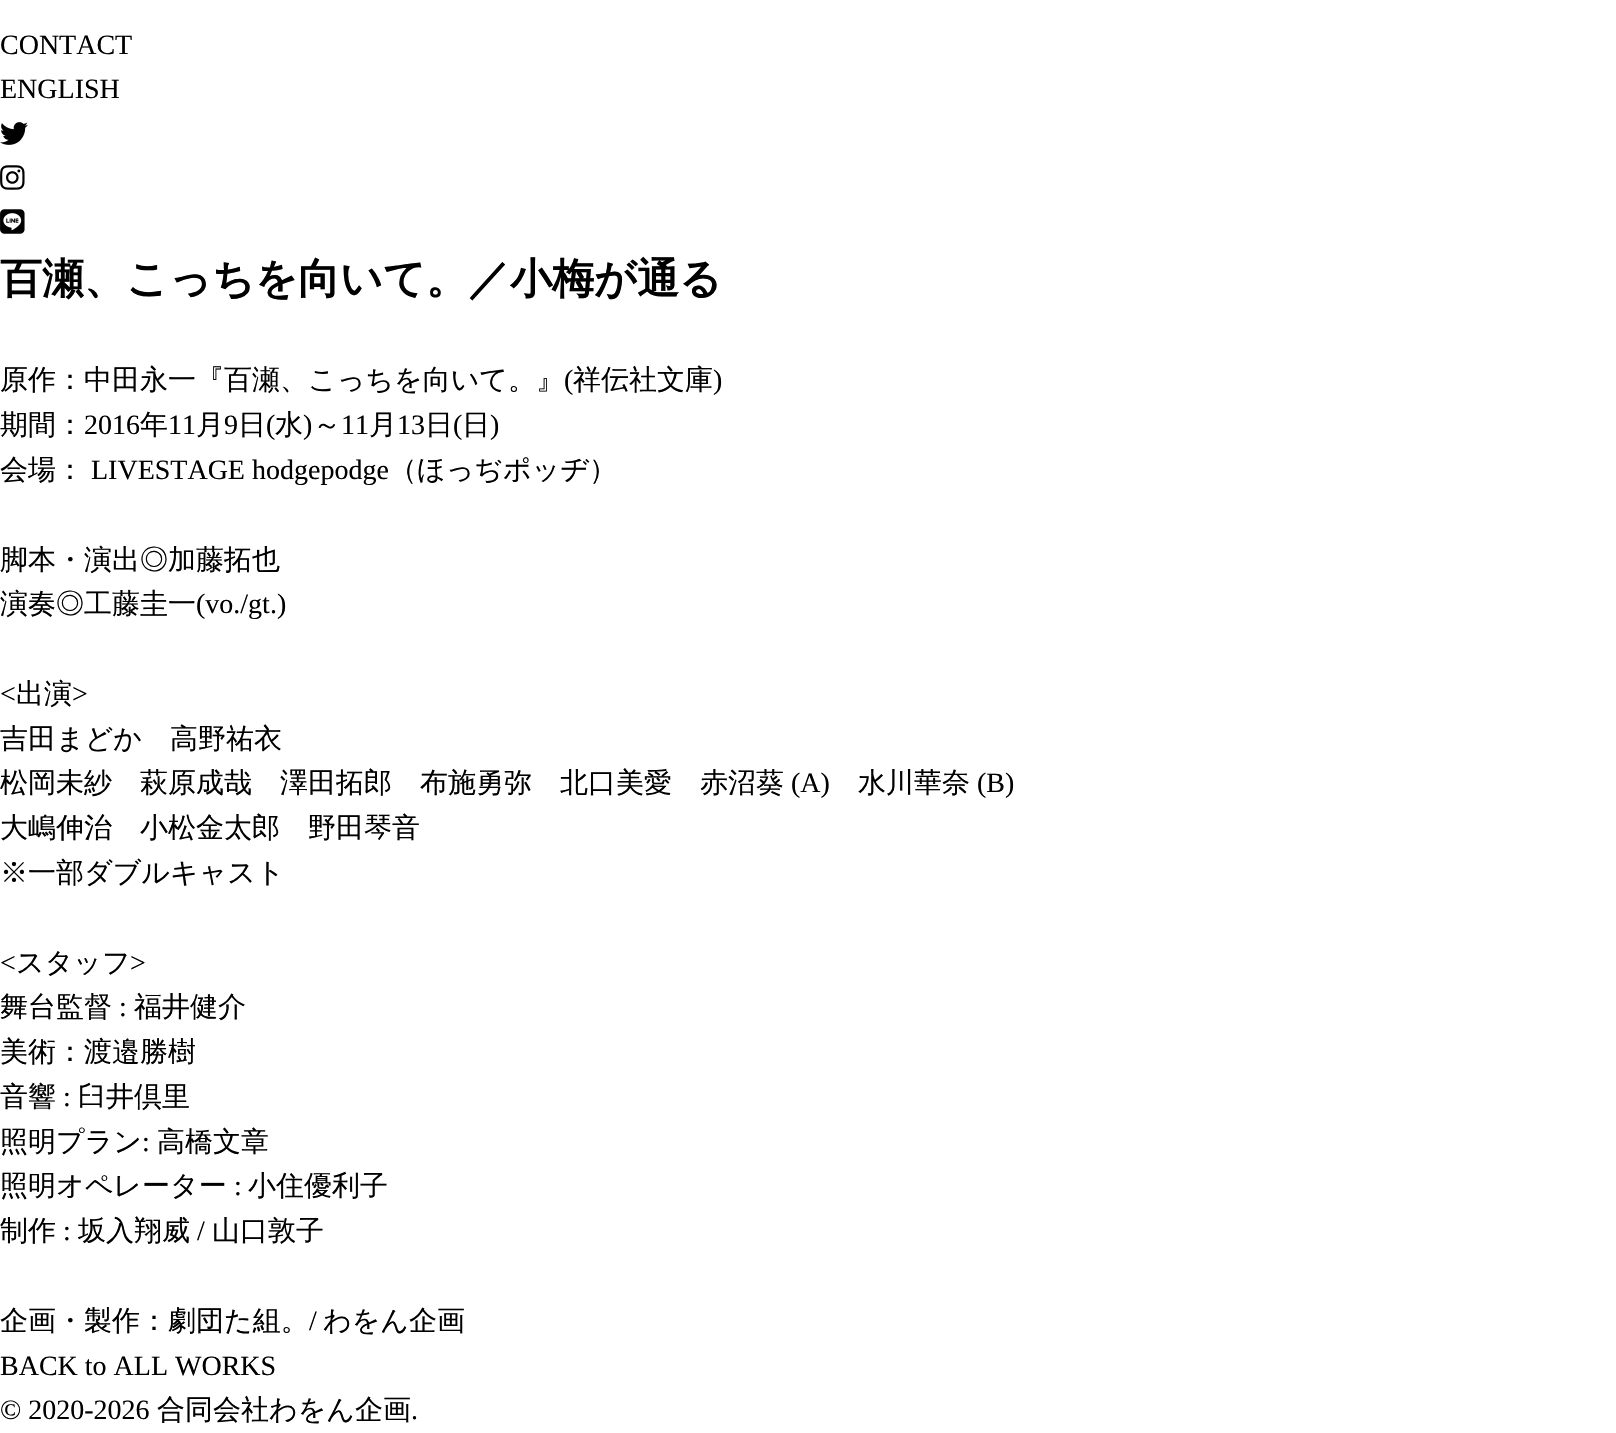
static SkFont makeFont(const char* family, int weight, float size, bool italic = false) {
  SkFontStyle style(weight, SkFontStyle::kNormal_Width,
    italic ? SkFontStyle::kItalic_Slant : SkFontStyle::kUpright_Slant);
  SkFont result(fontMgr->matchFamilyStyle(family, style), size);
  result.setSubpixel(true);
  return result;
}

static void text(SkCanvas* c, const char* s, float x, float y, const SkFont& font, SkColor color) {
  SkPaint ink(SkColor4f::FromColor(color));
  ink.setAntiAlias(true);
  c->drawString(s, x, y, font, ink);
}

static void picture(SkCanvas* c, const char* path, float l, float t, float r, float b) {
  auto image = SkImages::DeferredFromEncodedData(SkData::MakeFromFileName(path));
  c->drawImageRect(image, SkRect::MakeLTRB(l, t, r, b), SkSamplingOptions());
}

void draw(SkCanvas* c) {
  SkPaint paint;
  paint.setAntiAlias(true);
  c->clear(0xffffffff);
  SkFont face1 = makeFont("Liberation Serif", 400, 28);
  text(c, "CONTACT", 0, 54, face1, 0xff000000);
  text(c, "ENGLISH", 0, 98, face1, 0xff000000);
  picture(c, "img_01.png", 0, 122, 28, 145);
  picture(c, "img_02.png", 0, 165, 25, 190);
  picture(c, "img_03.png", 0, 209, 25, 234);
  SkFont face2 = makeFont("WenQuanYi Zen Hei", 700, 42);
  text(c, "百瀬、こっちを向いて。／小梅が通る", 0, 293, face2, 0xff000000);
  SkFont face3 = makeFont("WenQuanYi Zen Hei", 500, 28);
  text(c, "原作：中田永一『百瀬、こっちを向いて。』", 0, 389, face3, 0xff000000);
  text(c, "(", 564, 389, face1, 0xff000000);
  text(c, "祥伝社文庫", 573, 389, face3, 0xff000000);
  text(c, ")", 713, 389, face1, 0xff000000);
  text(c, "期間：", 0, 434, face3, 0xff000000);
  text(c, "2016", 84, 434, face1, 0xff000000);
  text(c, "年", 140, 434, face3, 0xff000000);
  text(c, "11", 168, 434, face1, 0xff000000);
  text(c, "月", 196, 434, face3, 0xff000000);
  text(c, "9", 224, 434, face1, 0xff000000);
  text(c, "日", 238, 434, face3, 0xff000000);
  text(c, "(", 266, 434, face1, 0xff000000);
  text(c, "水", 275, 434, face3, 0xff000000);
  text(c, ")", 303, 434, face1, 0xff000000);
  text(c, "～", 313, 434, face3, 0xff000000);
  text(c, "11", 341, 434, face1, 0xff000000);
  text(c, "月", 369, 434, face3, 0xff000000);
  text(c, "13", 397, 434, face1, 0xff000000);
  text(c, "日", 425, 434, face3, 0xff000000);
  text(c, "(", 453, 434, face1, 0xff000000);
  text(c, "日", 462, 434, face3, 0xff000000);
  text(c, ")", 490, 434, face1, 0xff000000);
  text(c, "会場：", 0, 479, face3, 0xff000000);
  text(c, "LIVESTAGE hodgepodge", 91, 479, face1, 0xff000000);
  text(c, "（ほっぢポッヂ）", 389, 479, face3, 0xff000000);
  text(c, "脚本・演出◎加藤拓也", 0, 569, face3, 0xff000000);
  text(c, "演奏◎工藤圭一", 0, 613, face3, 0xff000000);
  text(c, "(vo./gt.)", 196, 613, face1, 0xff000000);
  text(c, "<", 0, 703, face1, 0xff000000);
  text(c, "出演", 16, 703, face3, 0xff000000);
  text(c, ">", 72, 703, face1, 0xff000000);
  text(c, "吉田まどか　高野祐衣", 0, 748, face3, 0xff000000);
  text(c, "松岡未紗　萩原成哉　澤田拓郎　布施勇弥　北口美愛　赤沼葵", 0, 792, face3, 0xff000000);
  text(c, "(A)", 791, 792, face1, 0xff000000);
  text(c, "水川華奈", 858, 792, face3, 0xff000000);
  text(c, "(B)", 977, 792, face1, 0xff000000);
  text(c, "大嶋伸治　小松金太郎　野田琴音", 0, 837, face3, 0xff000000);
  text(c, "※一部ダブルキャスト", 0, 882, face3, 0xff000000);
  text(c, "<", 0, 972, face1, 0xff000000);
  text(c, "スタッフ", 16, 972, face3, 0xff000000);
  text(c, ">", 130, 972, face1, 0xff000000);
  text(c, "舞台監督", 0, 1016, face3, 0xff000000);
  text(c, ":", 119, 1016, face1, 0xff000000);
  text(c, "福井健介", 134, 1016, face3, 0xff000000);
  text(c, "美術：渡邉勝樹", 0, 1061, face3, 0xff000000);
  text(c, "音響", 0, 1106, face3, 0xff000000);
  text(c, ":", 63, 1106, face1, 0xff000000);
  text(c, "臼井倶里", 78, 1106, face3, 0xff000000);
  text(c, "照明プラン", 0, 1151, face3, 0xff000000);
  text(c, ":", 142, 1151, face1, 0xff000000);
  text(c, "高橋文章", 157, 1151, face3, 0xff000000);
  text(c, "照明オペレーター", 0, 1195, face3, 0xff000000);
  text(c, ":", 234, 1195, face1, 0xff000000);
  text(c, "小住優利子", 248, 1195, face3, 0xff000000);
  text(c, "制作", 0, 1240, face3, 0xff000000);
  text(c, ":", 63, 1240, face1, 0xff000000);
  text(c, "坂入翔威", 78, 1240, face3, 0xff000000);
  text(c, "/", 197, 1240, face1, 0xff000000);
  text(c, "山口敦子", 212, 1240, face3, 0xff000000);
  text(c, "企画・製作：劇団た組。", 0, 1330, face3, 0xff000000);
  text(c, "/", 309, 1330, face1, 0xff000000);
  text(c, "わをん企画", 323, 1330, face3, 0xff000000);
  text(c, "BACK to ALL WORKS", 0, 1375, face1, 0xff000000);
  text(c, "© 2020-2026", 0, 1419, face1, 0xff000000);
  text(c, "合同会社わをん企画", 157, 1419, face3, 0xff000000);
  text(c, ".", 411, 1419, face1, 0xff000000);
}
